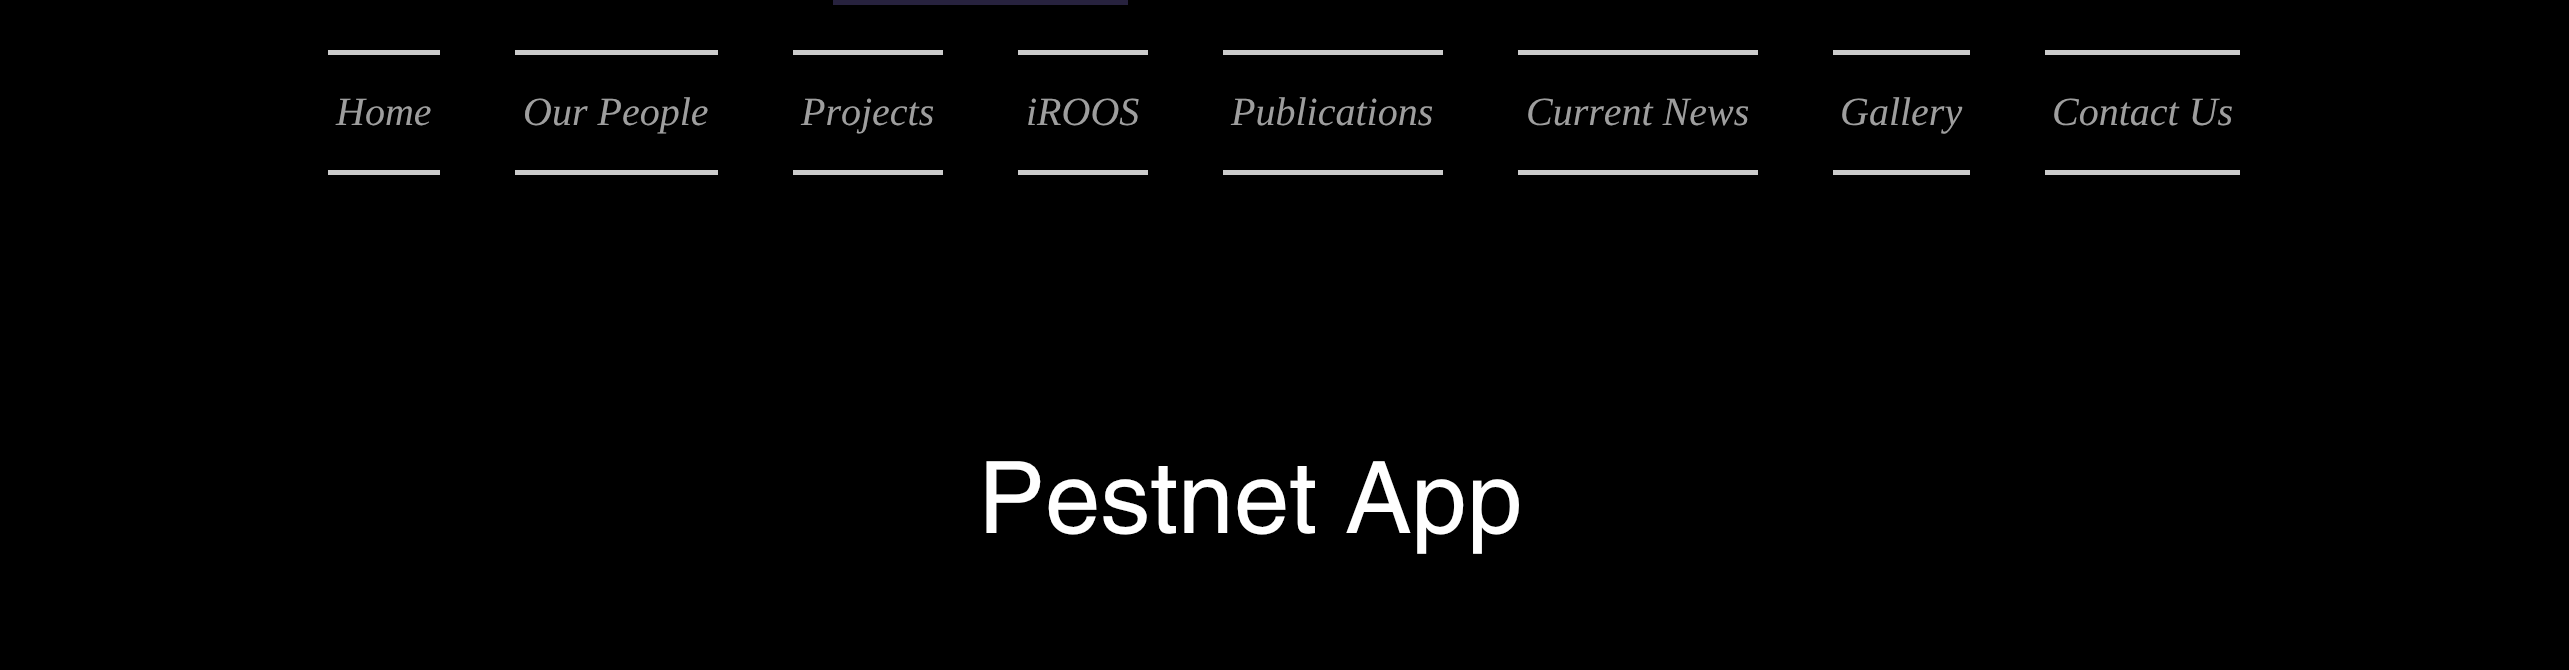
static SkFont makeFont(const char* family, int weight, float size, bool italic = false) {
  SkFontStyle style(weight, SkFontStyle::kNormal_Width,
    italic ? SkFontStyle::kItalic_Slant : SkFontStyle::kUpright_Slant);
  SkFont result(fontMgr->matchFamilyStyle(family, style), size);
  result.setSubpixel(true);
  return result;
}

static void text(SkCanvas* c, const char* s, float x, float y, const SkFont& font, SkColor color) {
  SkPaint ink(SkColor4f::FromColor(color));
  ink.setAntiAlias(true);
  c->drawString(s, x, y, font, ink);
}

static void box(SkCanvas* c, float l, float t, float r, float b, SkColor color) {
  SkPaint ink(SkColor4f::FromColor(color));
  ink.setAntiAlias(true);
  c->drawRect(SkRect::MakeLTRB(l, t, r, b), ink);
}

void draw(SkCanvas* c) {
  SkPaint paint;
  paint.setAntiAlias(true);
  c->clear(0xff000000);
  box(c, 328, 50, 440, 55, 0xffcccccc);
  box(c, 328, 170, 440, 175, 0xffcccccc);
  SkFont face1 = makeFont("Liberation Serif", 400, 40, true);
  text(c, "Home", 336, 125, face1, 0xff9e9e9e);
  box(c, 515, 50, 718, 55, 0xffcccccc);
  box(c, 515, 170, 718, 175, 0xffcccccc);
  text(c, "Our People", 523, 125, face1, 0xff9e9e9e);
  box(c, 793, 50, 943, 55, 0xffcccccc);
  box(c, 793, 170, 943, 175, 0xffcccccc);
  text(c, "Projects", 801, 125, face1, 0xff9e9e9e);
  box(c, 1018, 50, 1148, 55, 0xffcccccc);
  box(c, 1018, 170, 1148, 175, 0xffcccccc);
  text(c, "iROOS", 1026, 125, face1, 0xff9e9e9e);
  box(c, 1223, 50, 1443, 55, 0xffcccccc);
  box(c, 1223, 170, 1443, 175, 0xffcccccc);
  text(c, "Publications", 1231, 125, face1, 0xff9e9e9e);
  box(c, 1518, 50, 1758, 55, 0xffcccccc);
  box(c, 1518, 170, 1758, 175, 0xffcccccc);
  text(c, "Current News", 1526, 125, face1, 0xff9e9e9e);
  box(c, 1833, 50, 1970, 55, 0xffcccccc);
  box(c, 1833, 170, 1970, 175, 0xffcccccc);
  text(c, "Gallery", 1840, 125, face1, 0xff9e9e9e);
  box(c, 2045, 50, 2240, 55, 0xffcccccc);
  box(c, 2045, 170, 2240, 175, 0xffcccccc);
  text(c, "Contact Us", 2052, 125, face1, 0xff9e9e9e);
  box(c, 833, 0, 1128, 5, 0xff27223e);
  SkFont face2 = makeFont("helvetica", 400, 100);
  text(c, "Pestnet App", 978, 533, face2, 0xffffffff);
}
